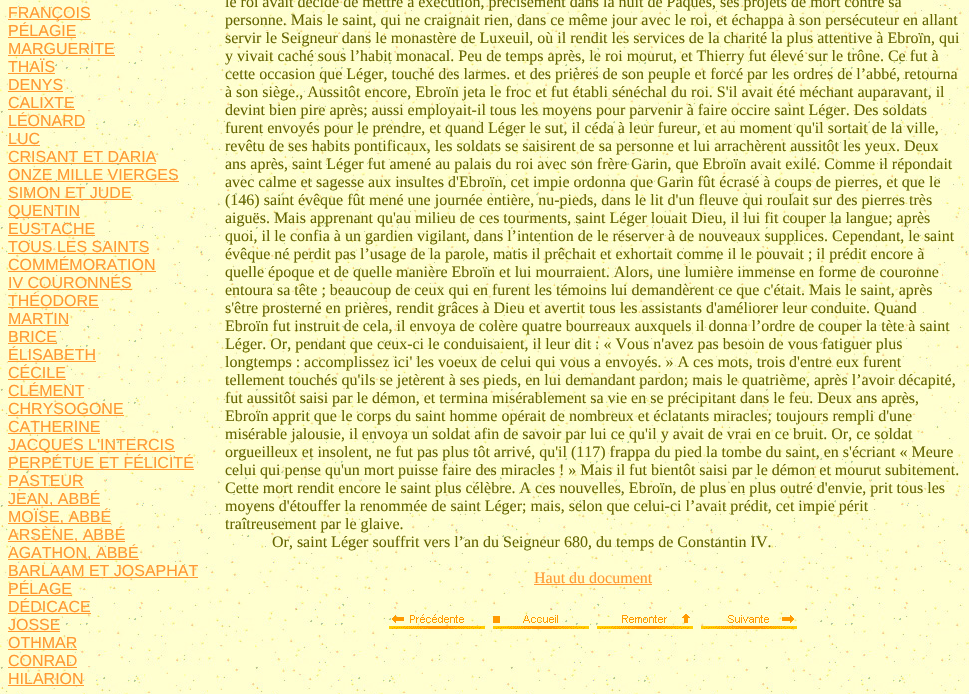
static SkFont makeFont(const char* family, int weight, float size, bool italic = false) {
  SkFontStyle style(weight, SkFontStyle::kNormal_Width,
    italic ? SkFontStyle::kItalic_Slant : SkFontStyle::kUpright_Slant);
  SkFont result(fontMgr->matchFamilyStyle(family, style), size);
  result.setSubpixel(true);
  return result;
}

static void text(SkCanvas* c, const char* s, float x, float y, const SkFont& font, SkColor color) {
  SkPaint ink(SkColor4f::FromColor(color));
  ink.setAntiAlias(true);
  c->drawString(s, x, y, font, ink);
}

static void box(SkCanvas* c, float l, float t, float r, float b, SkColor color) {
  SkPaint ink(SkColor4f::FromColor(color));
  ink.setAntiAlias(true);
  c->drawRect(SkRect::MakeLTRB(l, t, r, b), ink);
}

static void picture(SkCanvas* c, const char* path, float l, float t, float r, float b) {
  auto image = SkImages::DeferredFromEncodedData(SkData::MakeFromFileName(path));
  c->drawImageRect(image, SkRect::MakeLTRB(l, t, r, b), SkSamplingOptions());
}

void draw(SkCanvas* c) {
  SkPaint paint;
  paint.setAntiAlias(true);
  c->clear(0xffffffff);
  picture(c, "img_01.png", 0, 0, 969, 694);
  box(c, 8, 19, 91, 20, 0xffff9933);
  SkFont face1 = makeFont("Liberation Sans", 400, 16);
  text(c, "FRANÇOIS", 8, 18, face1, 0xffff9933);
  text(c, "PÉLAGIE", 8, 36, face1, 0xffff9933);
  box(c, 8, 37, 76, 38, 0xffff9933);
  text(c, "MARGUERITE", 8, 54, face1, 0xffff9933);
  box(c, 8, 55, 115, 56, 0xffff9933);
  text(c, "THAÏS", 8, 72, face1, 0xffff9933);
  box(c, 8, 73, 55, 74, 0xffff9933);
  text(c, "DENYS", 8, 90, face1, 0xffff9933);
  box(c, 8, 91, 63, 92, 0xffff9933);
  text(c, "CALIXTE", 8, 108, face1, 0xffff9933);
  box(c, 8, 109, 75, 110, 0xffff9933);
  text(c, "LÉONARD", 8, 126, face1, 0xffff9933);
  box(c, 8, 127, 85, 128, 0xffff9933);
  text(c, "LUC", 8, 144, face1, 0xffff9933);
  box(c, 8, 145, 40, 146, 0xffff9933);
  text(c, "CRISANT ET DARIA", 8, 162, face1, 0xffff9933);
  box(c, 8, 163, 156, 164, 0xffff9933);
  text(c, "ONZE MILLE VIERGES", 8, 180, face1, 0xffff9933);
  box(c, 8, 181, 179, 182, 0xffff9933);
  text(c, "SIMON ET JUDE", 8, 198, face1, 0xffff9933);
  box(c, 8, 199, 132, 200, 0xffff9933);
  box(c, 8, 217, 80, 218, 0xffff9933);
  text(c, "QUENTIN", 8, 216, face1, 0xffff9933);
  text(c, "EUSTACHE", 8, 234, face1, 0xffff9933);
  box(c, 8, 235, 95, 236, 0xffff9933);
  text(c, "TOUS LES SAINTS", 8, 252, face1, 0xffff9933);
  box(c, 8, 253, 149, 254, 0xffff9933);
  text(c, "COMMÉMORATION", 8, 270, face1, 0xffff9933);
  box(c, 8, 271, 156, 272, 0xffff9933);
  text(c, "IV COURONNÉS", 8, 288, face1, 0xffff9933);
  box(c, 8, 289, 132, 290, 0xffff9933);
  text(c, "THÉODORE", 8, 306, face1, 0xffff9933);
  box(c, 8, 307, 99, 308, 0xffff9933);
  text(c, "MARTIN", 8, 324, face1, 0xffff9933);
  box(c, 8, 325, 69, 326, 0xffff9933);
  text(c, "BRICE", 8, 342, face1, 0xffff9933);
  box(c, 8, 343, 57, 344, 0xffff9933);
  text(c, "ÉLISABETH", 8, 360, face1, 0xffff9933);
  box(c, 8, 361, 96, 362, 0xffff9933);
  text(c, "CÉCILE", 8, 378, face1, 0xffff9933);
  box(c, 8, 379, 66, 380, 0xffff9933);
  text(c, "CLÉMENT", 8, 396, face1, 0xffff9933);
  box(c, 8, 397, 84, 398, 0xffff9933);
  text(c, "CHRYSOGONE", 8, 414, face1, 0xffff9933);
  box(c, 8, 415, 124, 416, 0xffff9933);
  text(c, "CATHERINE", 8, 432, face1, 0xffff9933);
  box(c, 8, 433, 100, 434, 0xffff9933);
  box(c, 8, 451, 175, 452, 0xffff9933);
  text(c, "JACQUES L'INTERCIS", 8, 450, face1, 0xffff9933);
  text(c, "PERPÉTUE ET FÉLICITÉ", 8, 468, face1, 0xffff9933);
  box(c, 8, 469, 194, 470, 0xffff9933);
  text(c, "PASTEUR", 8, 486, face1, 0xffff9933);
  box(c, 8, 487, 84, 488, 0xffff9933);
  box(c, 8, 505, 100, 506, 0xffff9933);
  text(c, "JEAN, ABBÉ", 8, 504, face1, 0xffff9933);
  box(c, 8, 523, 111, 524, 0xffff9933);
  text(c, "MOÏSE, ABBÉ", 8, 522, face1, 0xffff9933);
  box(c, 8, 541, 125, 542, 0xffff9933);
  text(c, "ARSÈNE, ABBÉ", 8, 540, face1, 0xffff9933);
  box(c, 8, 559, 139, 560, 0xffff9933);
  text(c, "AGATHON, ABBÉ", 8, 558, face1, 0xffff9933);
  text(c, "BARLAAM ET JOSAPHAT", 8, 576, face1, 0xffff9933);
  box(c, 8, 577, 198, 578, 0xffff9933);
  text(c, "PÉLAGE", 8, 594, face1, 0xffff9933);
  box(c, 8, 595, 72, 596, 0xffff9933);
  text(c, "DÉDICACE", 8, 612, face1, 0xffff9933);
  box(c, 8, 613, 91, 614, 0xffff9933);
  text(c, "JOSSE", 8, 630, face1, 0xffff9933);
  box(c, 8, 631, 60, 632, 0xffff9933);
  text(c, "OTHMAR", 8, 648, face1, 0xffff9933);
  box(c, 8, 649, 77, 650, 0xffff9933);
  text(c, "CONRAD", 8, 666, face1, 0xffff9933);
  box(c, 8, 667, 77, 668, 0xffff9933);
  text(c, "HILARION", 8, 684, face1, 0xffff9933);
  box(c, 8, 685, 84, 686, 0xffff9933);
  SkFont face2 = makeFont("Liberation Serif", 400, 16);
  text(c, "le roi avait décidé de mettre à exécution, précisément dans la nuit de Pâques, ses projets de mort contre sa", 225, 7, face2, 0xff666600);
  text(c, "personne. Mais le saint, qui ne craignait rien, dans ce même jour avec le roi, et échappa à son persécuteur en allant", 225, 25, face2, 0xff666600);
  text(c, "servir le Seigneur dans le monastère de Luxeuil, où il rendit les services de la charité la plus attentive à Ebroïn, qui", 225, 43, face2, 0xff666600);
  text(c, "y vivait caché sous l’habit monacal. Peu de temps après, le roi mourut, et Thierry fut élevé sur le trône. Ce fut à", 225, 61, face2, 0xff666600);
  text(c, "cette occasion que Léger, touché des larmes. et des prières de son peuple et forcé par les ordres de l’abbé, retourna", 225, 79, face2, 0xff666600);
  text(c, "à son siège., Aussitôt encore, Ebroïn jeta le froc et fut établi sénéchal du roi. S'il avait été méchant auparavant, il", 225, 97, face2, 0xff666600);
  text(c, "devint bien pire après; aussi employait-il tous les moyens pour parvenir à faire occire saint Léger. Des soldats", 225, 115, face2, 0xff666600);
  text(c, "furent envoyés pour le prendre, et quand Léger le sut, il céda à leur fureur, et au moment qu'il sortait de la ville,", 225, 133, face2, 0xff666600);
  text(c, "revêtu de ses habits pontificaux, les soldats se saisirent de sa personne et lui arrachèrent aussitôt les yeux. Deux", 225, 151, face2, 0xff666600);
  text(c, "ans après, saint Léger fut amené au palais du roi avec son frère Garin, que Ebroïn avait exilé. Comme il répondait", 225, 169, face2, 0xff666600);
  text(c, "avec calme et sagesse aux insultes d'Ebroïn, cet impie ordonna que Garin fût écrasé à coups de pierres, et que le", 225, 187, face2, 0xff666600);
  text(c, "(146) saint évêque fût mené une journée entière, nu-pieds, dans le lit d'un fleuve qui roulait sur des pierres très", 225, 205, face2, 0xff666600);
  text(c, "aiguës. Mais apprenant qu'au milieu de ces tourments, saint Léger louait Dieu, il lui fit couper la langue; après", 225, 223, face2, 0xff666600);
  text(c, "quoi, il le confia à un gardien vigilant, dans l’intention de le réserver à de nouveaux supplices. Cependant, le saint", 225, 241, face2, 0xff666600);
  text(c, "évêque né perdit pas l’usage de la parole, matis il prêchait et exhortait comme il le pouvait ; il prédit encore à", 225, 259, face2, 0xff666600);
  text(c, "quelle époque et de quelle manière Ebroïn et lui mourraient. Alors, une lumière immense en forme de couronne", 225, 277, face2, 0xff666600);
  text(c, "entoura sa tête ; beaucoup de ceux qui en furent les témoins lui demandèrent ce que c'était. Mais le saint, après", 225, 295, face2, 0xff666600);
  text(c, "s'être prosterné en prières, rendit grâces à Dieu et avertit tous les assistants d'améliorer leur conduite. Quand", 225, 313, face2, 0xff666600);
  text(c, "Ebroïn fut instruit de cela, il envoya de colère quatre bourreaux auxquels il donna l’ordre de couper la tète à saint", 225, 331, face2, 0xff666600);
  text(c, "Léger. Or, pendant que ceux-ci le conduisaient, il leur dit : « Vous n'avez pas besoin de vous fatiguer plus", 225, 349, face2, 0xff666600);
  text(c, "longtemps : accomplissez ici' les voeux de celui qui vous a envoyés. » A ces mots, trois d'entre eux furent", 225, 367, face2, 0xff666600);
  text(c, "tellement touchés qu'ils se jetèrent à ses pieds, en lui demandant pardon; mais le quatrième, après l’avoir décapité,", 225, 385, face2, 0xff666600);
  text(c, "fut aussitôt saisi par le démon, et termina misérablement sa vie en se précipitant dans le feu. Deux ans après,", 225, 403, face2, 0xff666600);
  text(c, "Ebroïn apprit que le corps du saint homme opérait de nombreux et éclatants miracles; toujours rempli d'une", 225, 421, face2, 0xff666600);
  text(c, "misérable jalousie, il envoya un soldat afin de savoir par lui ce qu'il y avait de vrai en ce bruit. Or, ce soldat", 225, 439, face2, 0xff666600);
  text(c, "orgueilleux et insolent, ne fut pas plus tôt arrivé, qu'il (117) frappa du pied la tombe du saint, en s'écriant « Meure", 225, 457, face2, 0xff666600);
  text(c, "celui qui pense qu'un mort puisse faire des miracles ! » Mais il fut bientôt saisi par le démon et mourut subitement.", 225, 475, face2, 0xff666600);
  text(c, "Cette mort rendit encore le saint plus célèbre. A ces nouvelles, Ebroïn, de plus en plus outré d'envie, prit tous les", 225, 493, face2, 0xff666600);
  text(c, "moyens d'étouffer la renommée de saint Léger; mais, selon que celui-ci l’avait prédit, cet impie périt", 225, 511, face2, 0xff666600);
  text(c, "traîtreusement par le glaive.", 225, 529, face2, 0xff666600);
  text(c, "Or, saint Léger souffrit vers l’an du Seigneur 680, du temps de Constantin IV.", 272, 547, face2, 0xff666600);
  text(c, "Haut du document", 534, 583, face2, 0xffff9933);
  box(c, 534, 584, 652, 585, 0xffff9933);
  picture(c, "img_02.png", 389, 614, 485, 629);
  picture(c, "img_03.png", 493, 615, 589, 629);
  picture(c, "img_04.png", 597, 614, 693, 629);
  picture(c, "img_05.png", 701, 615, 797, 629);
}
